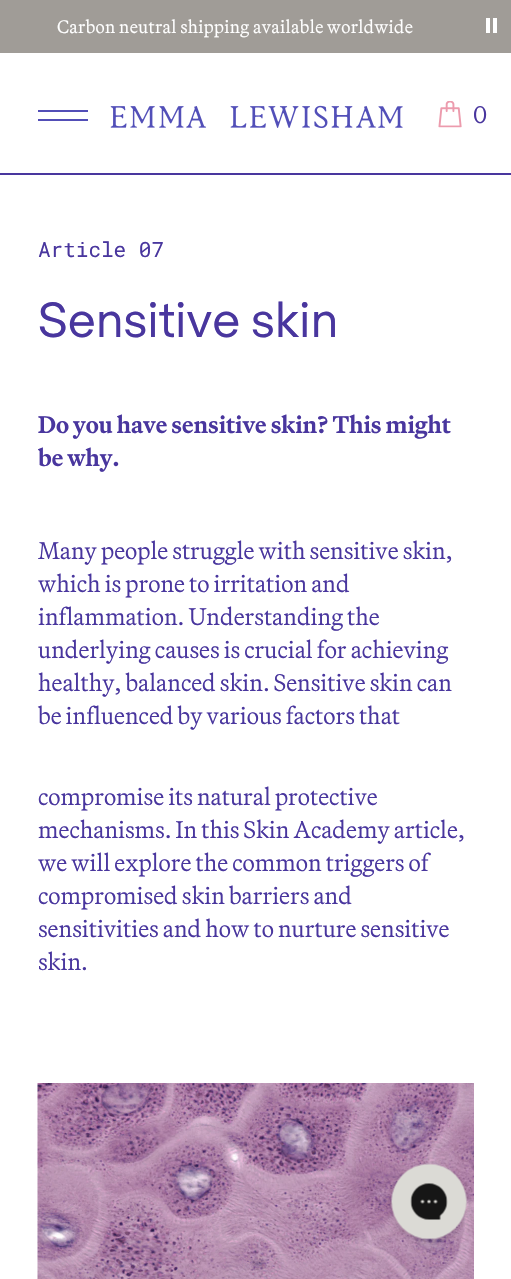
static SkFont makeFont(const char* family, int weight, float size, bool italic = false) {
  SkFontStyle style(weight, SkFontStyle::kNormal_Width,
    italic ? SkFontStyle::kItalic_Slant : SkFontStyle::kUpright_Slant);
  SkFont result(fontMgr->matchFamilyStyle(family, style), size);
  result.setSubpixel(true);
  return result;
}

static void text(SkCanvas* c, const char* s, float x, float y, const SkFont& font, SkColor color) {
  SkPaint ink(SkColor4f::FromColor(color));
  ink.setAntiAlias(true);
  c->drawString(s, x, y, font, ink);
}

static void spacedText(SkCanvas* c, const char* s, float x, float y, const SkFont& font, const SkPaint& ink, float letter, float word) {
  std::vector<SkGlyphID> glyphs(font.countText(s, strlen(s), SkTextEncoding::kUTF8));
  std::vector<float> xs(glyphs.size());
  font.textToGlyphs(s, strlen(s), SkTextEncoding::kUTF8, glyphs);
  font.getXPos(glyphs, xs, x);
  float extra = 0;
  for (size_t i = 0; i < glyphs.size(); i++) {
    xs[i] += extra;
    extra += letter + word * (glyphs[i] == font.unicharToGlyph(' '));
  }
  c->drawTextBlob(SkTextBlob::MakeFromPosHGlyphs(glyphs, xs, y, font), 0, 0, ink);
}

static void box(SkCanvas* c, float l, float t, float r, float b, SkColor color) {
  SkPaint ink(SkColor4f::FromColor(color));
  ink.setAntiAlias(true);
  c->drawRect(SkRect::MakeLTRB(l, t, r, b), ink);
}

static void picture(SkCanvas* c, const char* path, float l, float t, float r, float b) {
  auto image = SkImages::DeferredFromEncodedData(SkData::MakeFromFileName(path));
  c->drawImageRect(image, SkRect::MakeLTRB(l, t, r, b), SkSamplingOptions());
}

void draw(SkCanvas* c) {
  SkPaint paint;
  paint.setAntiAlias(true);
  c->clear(0xffffffff);
  box(c, 0, 0, 511, 53, 0xffa09c97);
  SkFont face1 = makeFont("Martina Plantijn", 300, 18);
  paint.setColor(0xffffffff);
  spacedText(c, "Carbon neutral shipping available worldwide", 57, 33, face1, paint, 0.35f, 0);
  box(c, 486, 18, 490, 33, 0xffffffff);
  box(c, 493, 18, 497, 33, 0xffffffff);
  box(c, 0, 173, 511, 175, 0xff49369e);
  box(c, 38, 110, 88, 112, 0xff524eb7);
  box(c, 38, 119, 88, 121, 0xff524eb7);
  picture(c, "img_01.png", 110, 105, 403, 128);
  picture(c, "img_02.png", 438, 101, 462, 128);
  SkFont face2 = makeFont("Martina Plantijn", 300, 24);
  text(c, "0", 473, 123, face2, 0xff49369e);
  SkFont face3 = makeFont("Roboto Mono", 400, 21);
  text(c, "Article 07", 38, 257, face3, 0xff49369e);
  SkFont face4 = makeFont("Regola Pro", 400, 48);
  text(c, "Sensitive skin", 38, 337, face4, 0xff49369e);
  SkFont face5 = makeFont("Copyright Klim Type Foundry", 700, 24);
  text(c, "Do you have sensitive skin? This might", 38, 433, face5, 0xff49369e);
  text(c, "be why.", 38, 466, face5, 0xff49369e);
  text(c, "Many people struggle with sensitive skin,", 38, 559, face2, 0xff49369e);
  text(c, "which is prone to irritation and", 38, 592, face2, 0xff49369e);
  text(c, "inflammation. Understanding the", 38, 625, face2, 0xff49369e);
  text(c, "underlying causes is crucial for achieving", 38, 658, face2, 0xff49369e);
  text(c, "healthy, balanced skin. Sensitive skin can", 38, 691, face2, 0xff49369e);
  text(c, "be influenced by various factors that", 38, 724, face2, 0xff49369e);
  text(c, "compromise its natural protective", 38, 805, face2, 0xff49369e);
  text(c, "mechanisms. In this Skin Academy article,", 38, 838, face2, 0xff49369e);
  text(c, "we will explore the common triggers of", 38, 871, face2, 0xff49369e);
  text(c, "compromised skin barriers and", 38, 904, face2, 0xff49369e);
  text(c, "sensitivities and how to nurture sensitive", 38, 937, face2, 0xff49369e);
  text(c, "skin.", 38, 970, face2, 0xff49369e);
  picture(c, "img_03.png", 37, 1083, 474, 1279);
  picture(c, "img_04.png", 389, 1163, 470, 1245);
}
